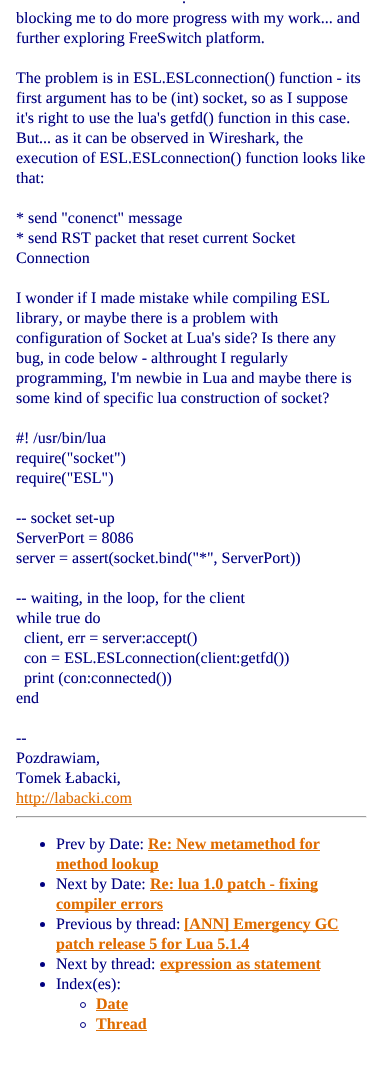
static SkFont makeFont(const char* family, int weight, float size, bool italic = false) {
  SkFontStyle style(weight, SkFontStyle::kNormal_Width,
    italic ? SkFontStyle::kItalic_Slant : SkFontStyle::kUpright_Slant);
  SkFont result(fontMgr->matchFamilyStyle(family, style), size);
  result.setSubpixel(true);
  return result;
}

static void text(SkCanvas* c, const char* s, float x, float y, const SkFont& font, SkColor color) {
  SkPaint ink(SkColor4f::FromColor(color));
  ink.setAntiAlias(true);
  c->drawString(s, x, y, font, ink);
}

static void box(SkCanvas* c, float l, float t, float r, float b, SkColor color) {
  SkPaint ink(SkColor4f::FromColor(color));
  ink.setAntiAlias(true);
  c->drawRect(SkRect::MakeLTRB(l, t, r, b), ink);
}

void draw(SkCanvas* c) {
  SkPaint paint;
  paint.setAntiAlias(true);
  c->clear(0xffffffff);
  SkFont face1 = makeFont("Liberation Serif", 400, 16);
  text(c, ".", 182, 3, face1, 0xff000080);
  text(c, "blocking me to do more progress with my work... and", 16, 23, face1, 0xff000080);
  text(c, "further exploring FreeSwitch platform.", 16, 43, face1, 0xff000080);
  text(c, "The problem is in ESL.ESLconnection() function - its", 16, 83, face1, 0xff000080);
  text(c, "first argument has to be (int) socket, so as I suppose", 16, 103, face1, 0xff000080);
  text(c, "it's right to use the lua's getfd() function in this case.", 16, 123, face1, 0xff000080);
  text(c, "But... as it can be observed in Wireshark, the", 16, 143, face1, 0xff000080);
  text(c, "execution of ESL.ESLconnection() function looks like", 16, 163, face1, 0xff000080);
  text(c, "that:", 16, 183, face1, 0xff000080);
  text(c, "* send \"conenct\" message", 16, 223, face1, 0xff000080);
  text(c, "* send RST packet that reset current Socket", 16, 243, face1, 0xff000080);
  text(c, "Connection", 16, 263, face1, 0xff000080);
  text(c, "I wonder if I made mistake while compiling ESL", 16, 303, face1, 0xff000080);
  text(c, "library, or maybe there is a problem with", 16, 323, face1, 0xff000080);
  text(c, "configuration of Socket at Lua's side? Is there any", 16, 343, face1, 0xff000080);
  text(c, "bug, in code below - althrought I regularly", 16, 363, face1, 0xff000080);
  text(c, "programming, I'm newbie in Lua and maybe there is", 16, 383, face1, 0xff000080);
  text(c, "some kind of specific lua construction of socket?", 16, 403, face1, 0xff000080);
  text(c, "#! /usr/bin/lua", 16, 443, face1, 0xff000080);
  text(c, "require(\"socket\")", 16, 463, face1, 0xff000080);
  text(c, "require(\"ESL\")", 16, 483, face1, 0xff000080);
  text(c, "-- socket set-up", 16, 523, face1, 0xff000080);
  text(c, "ServerPort = 8086", 16, 543, face1, 0xff000080);
  text(c, "server = assert(socket.bind(\"*\", ServerPort))", 16, 563, face1, 0xff000080);
  text(c, "-- waiting, in the loop, for the client", 16, 603, face1, 0xff000080);
  text(c, "while true do", 16, 623, face1, 0xff000080);
  text(c, "client, err = server:accept()", 24, 643, face1, 0xff000080);
  text(c, "con = ESL.ESLconnection(client:getfd())", 24, 663, face1, 0xff000080);
  text(c, "print (con:connected())", 24, 683, face1, 0xff000080);
  text(c, "end", 16, 703, face1, 0xff000080);
  text(c, "--", 16, 743, face1, 0xff000080);
  text(c, "Pozdrawiam,", 16, 763, face1, 0xff000080);
  text(c, "Tomek Łabacki,", 16, 783, face1, 0xff000080);
  box(c, 16, 804, 132, 805, 0xffdf6c00);
  text(c, "http://labacki.com", 16, 803, face1, 0xffdf6c00);
  box(c, 16, 816, 367, 817, 0xff9f9f9f);
  box(c, 366, 816, 367, 818, 0xffeeeeee);
  box(c, 16, 817, 367, 818, 0xffeeeeee);
  box(c, 16, 816, 17, 818, 0xff9f9f9f);
  paint.setColor(0xff000080);
  c->drawCircle(42.5f, 844.5f, 2.5f, paint);
  text(c, "Prev by Date:", 56, 849, face1, 0xff000080);
  SkFont face2 = makeFont("Liberation Serif", 700, 16);
  text(c, "Re: New metamethod for", 148, 849, face2, 0xffdf6c00);
  box(c, 148, 850, 320, 851, 0xffdf6c00);
  box(c, 56, 870, 159, 871, 0xffdf6c00);
  text(c, "method lookup", 56, 869, face2, 0xffdf6c00);
  c->drawCircle(42.5f, 884.5f, 2.5f, paint);
  text(c, "Next by Date:", 56, 889, face1, 0xff000080);
  box(c, 150, 890, 318, 891, 0xffdf6c00);
  text(c, "Re: lua 1.0 patch - fixing", 150, 889, face2, 0xffdf6c00);
  box(c, 56, 910, 163, 911, 0xffdf6c00);
  text(c, "compiler errors", 56, 909, face2, 0xffdf6c00);
  c->drawCircle(42.5f, 924.5f, 2.5f, paint);
  text(c, "Previous by thread:", 56, 929, face1, 0xff000080);
  box(c, 184, 930, 339, 931, 0xffdf6c00);
  text(c, "[ANN] Emergency GC", 184, 929, face2, 0xffdf6c00);
  box(c, 56, 950, 249, 951, 0xffdf6c00);
  text(c, "patch release 5 for Lua 5.1.4", 56, 949, face2, 0xffdf6c00);
  c->drawCircle(42.5f, 964.5f, 2.5f, paint);
  text(c, "Next by thread:", 56, 969, face1, 0xff000080);
  box(c, 160, 970, 320, 971, 0xffdf6c00);
  text(c, "expression as statement", 160, 969, face2, 0xffdf6c00);
  c->drawCircle(42.5f, 984.5f, 2.5f, paint);
  text(c, "Index(es):", 56, 989, face1, 0xff000080);
  paint.setStyle(SkPaint::kStroke_Style);
  paint.setStrokeWidth(1);
  c->drawCircle(83, 1005, 2.5f, paint);
  text(c, "Date", 96, 1009, face2, 0xffdf6c00);
  box(c, 96, 1010, 128, 1011, 0xffdf6c00);
  c->drawCircle(83, 1025, 2.5f, paint);
  text(c, "Thread", 96, 1029, face2, 0xffdf6c00);
  box(c, 96, 1030, 147, 1031, 0xffdf6c00);
}
